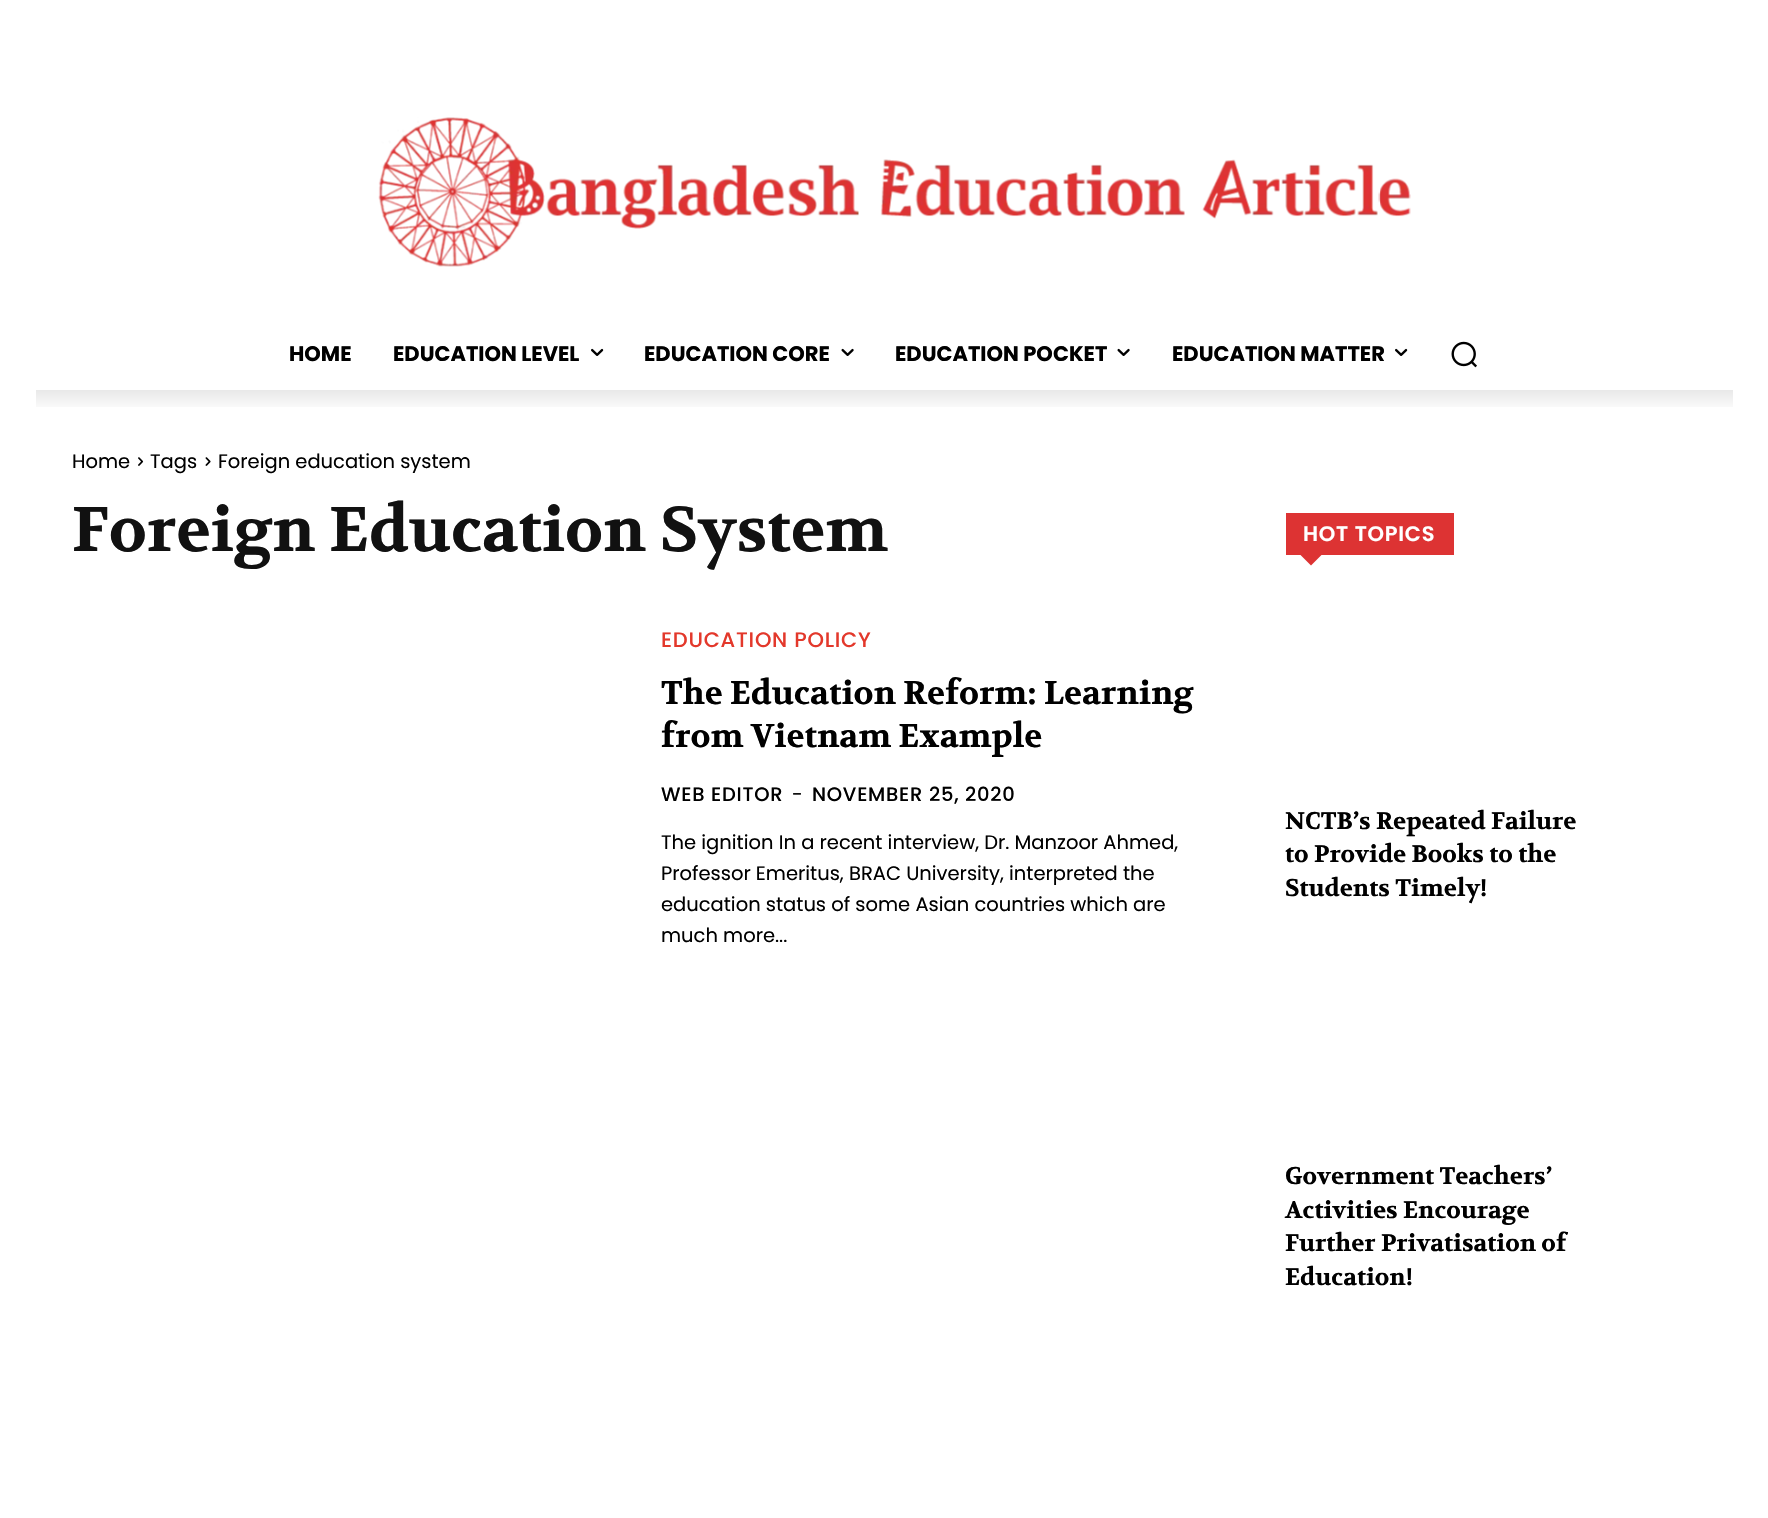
static SkFont makeFont(const char* family, int weight, float size, bool italic = false) {
  SkFontStyle style(weight, SkFontStyle::kNormal_Width,
    italic ? SkFontStyle::kItalic_Slant : SkFontStyle::kUpright_Slant);
  SkFont result(fontMgr->matchFamilyStyle(family, style), size);
  result.setSubpixel(true);
  return result;
}

static void text(SkCanvas* c, const char* s, float x, float y, const SkFont& font, SkColor color) {
  SkPaint ink(SkColor4f::FromColor(color));
  ink.setAntiAlias(true);
  c->drawString(s, x, y, font, ink);
}

static void spacedText(SkCanvas* c, const char* s, float x, float y, const SkFont& font, const SkPaint& ink, float letter, float word) {
  std::vector<SkGlyphID> glyphs(font.countText(s, strlen(s), SkTextEncoding::kUTF8));
  std::vector<float> xs(glyphs.size());
  font.textToGlyphs(s, strlen(s), SkTextEncoding::kUTF8, glyphs);
  font.getXPos(glyphs, xs, x);
  float extra = 0;
  for (size_t i = 0; i < glyphs.size(); i++) {
    xs[i] += extra;
    extra += letter + word * (glyphs[i] == font.unicharToGlyph(' '));
  }
  c->drawTextBlob(SkTextBlob::MakeFromPosHGlyphs(glyphs, xs, y, font), 0, 0, ink);
}

static void box(SkCanvas* c, float l, float t, float r, float b, SkColor color) {
  SkPaint ink(SkColor4f::FromColor(color));
  ink.setAntiAlias(true);
  c->drawRect(SkRect::MakeLTRB(l, t, r, b), ink);
}

static void picture(SkCanvas* c, const char* path, float l, float t, float r, float b) {
  auto image = SkImages::DeferredFromEncodedData(SkData::MakeFromFileName(path));
  c->drawImageRect(image, SkRect::MakeLTRB(l, t, r, b), SkSamplingOptions());
}

void draw(SkCanvas* c) {
  SkPaint paint;
  paint.setAntiAlias(true);
  c->clear(0xffffffff);
  picture(c, "img_01.png", 378, 117, 1411, 267);
  c->save();
  c->clipRect(SkRect::MakeLTRB(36, 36, 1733, 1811));
  c->clipRect(SkRect::MakeLTRB(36, 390, 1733, 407));
  paint.setColor(0x1a000000);
  paint.setMaskFilter(SkMaskFilter::MakeBlur(kNormal_SkBlurStyle, 9));
  c->drawRect(SkRect::MakeLTRB(2, 45, 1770, 399), paint);
  paint.setMaskFilter(nullptr);
  c->restore();
  SkFont face1 = makeFont("Poppins", 700, 21);
  text(c, "HOME", 289, 361, face1, 0xff000000);
  text(c, "EDUCATION LEVEL", 393, 361, face1, 0xff000000);
  picture(c, "img_02.png", 591, 348, 604, 356);
  text(c, "EDUCATION CORE", 644, 361, face1, 0xff000000);
  picture(c, "img_03.png", 841, 348, 854, 356);
  text(c, "EDUCATION POCKET", 895, 361, face1, 0xff000000);
  picture(c, "img_03.png", 1117, 348, 1130, 356);
  text(c, "EDUCATION MATTER", 1172, 361, face1, 0xff000000);
  picture(c, "img_02.png", 1395, 348, 1408, 356);
  picture(c, "img_04.png", 1451, 341, 1477, 368);
  SkFont face2 = makeFont("Poppins", 400, 19.5f);
  text(c, "Home", 72, 468, face2, 0xff000000);
  picture(c, "img_05.png", 138, 457, 144, 466);
  text(c, "Tags", 150, 468, face2, 0xff000000);
  picture(c, "img_06.png", 205, 457, 211, 466);
  text(c, "Foreign education system", 218, 468, face2, 0xff000000);
  SkFont face3 = makeFont("Volkhov", 700, 63);
  text(c, "Foreign Education System", 72, 551, face3, 0xff111111);
  SkFont face4 = makeFont("Poppins", 500, 21);
  paint.setColor(0xffe3382b);
  spacedText(c, "EDUCATION POLICY", 661, 647, face4, paint, 0.75f, 0);
  SkFont face5 = makeFont("Volkhov", 700, 33);
  text(c, "The Education Reform: Learning", 661, 704, face5, 0xff000000);
  text(c, "from Vietnam Example", 661, 747, face5, 0xff000000);
  SkFont face6 = makeFont("Poppins", 500, 19.5f);
  paint.setColor(0xff000000);
  spacedText(c, "WEB EDITOR", 661, 801, face6, paint, 0.75f, 0);
  spacedText(c, "-", 792, 801, face2, paint, 0.75f, 0);
  spacedText(c, "NOVEMBER 25, 2020", 812, 801, face6, paint, 0.75f, 0);
  text(c, "The ignition In a recent interview, Dr. Manzoor Ahmed,", 661, 849, face2, 0xff000000);
  text(c, "Professor Emeritus, BRAC University, interpreted the", 661, 880, face2, 0xff000000);
  text(c, "education status of some Asian countries which are", 661, 911, face2, 0xff000000);
  text(c, "much more...", 661, 942, face2, 0xff000000);
  box(c, 1286, 513, 1454, 555, 0xffdd3333);
  SkFont face7 = makeFont("Poppins", 600, 21);
  paint.setColor(0xffffffff);
  spacedText(c, "HOT TOPICS", 1303, 541, face7, paint, 0.75f, 0);
  paint.setColor(0xffdd3333);
  c->drawPath(SkPathBuilder().moveTo(1300.5f, 555).lineTo(1321.5f, 555).lineTo(1311, 565.5f).close().detach(), paint);
  SkFont face8 = makeFont("Volkhov", 700, 24);
  text(c, "NCTB’s Repeated Failure", 1285, 829, face8, 0xff000000);
  text(c, "to Provide Books to the", 1285, 862, face8, 0xff000000);
  text(c, "Students Timely!", 1285, 896, face8, 0xff000000);
  text(c, "Government Teachers’", 1285, 1184, face8, 0xff000000);
  text(c, "Activities Encourage", 1285, 1218, face8, 0xff000000);
  text(c, "Further Privatisation of", 1285, 1251, face8, 0xff000000);
  text(c, "Education!", 1285, 1285, face8, 0xff000000);
}
